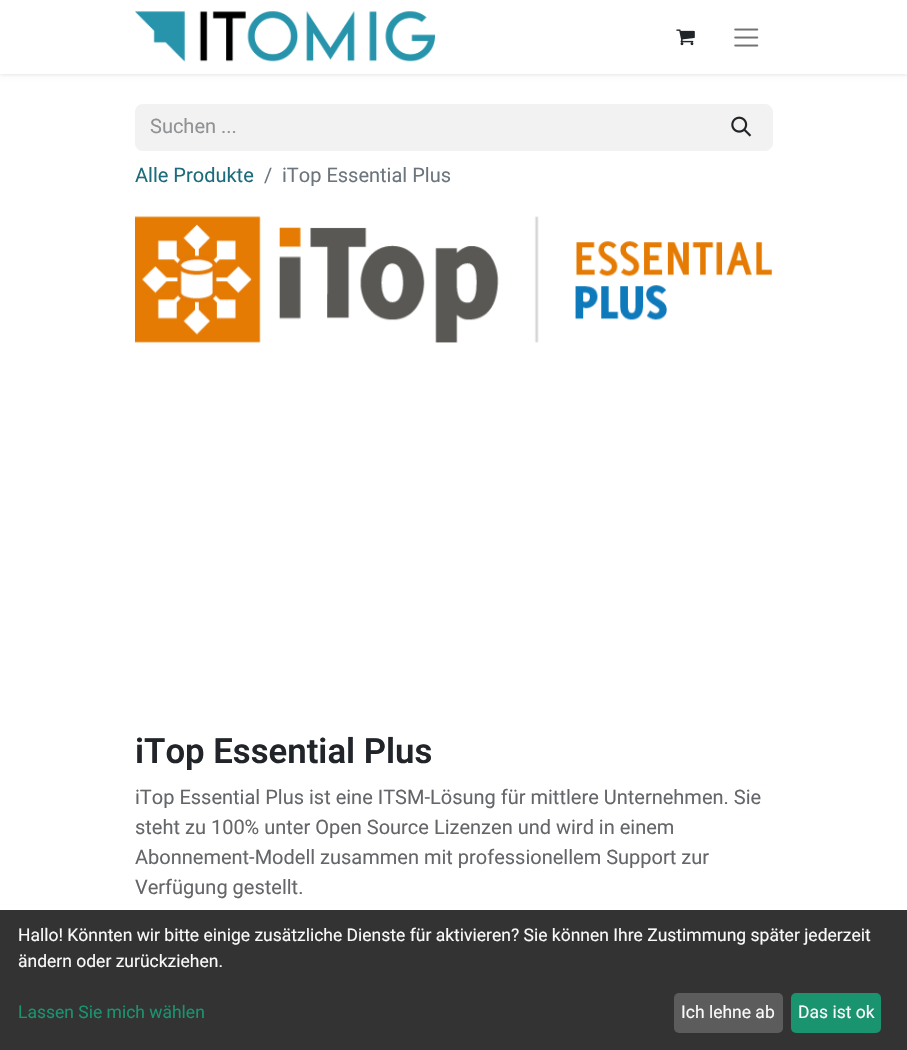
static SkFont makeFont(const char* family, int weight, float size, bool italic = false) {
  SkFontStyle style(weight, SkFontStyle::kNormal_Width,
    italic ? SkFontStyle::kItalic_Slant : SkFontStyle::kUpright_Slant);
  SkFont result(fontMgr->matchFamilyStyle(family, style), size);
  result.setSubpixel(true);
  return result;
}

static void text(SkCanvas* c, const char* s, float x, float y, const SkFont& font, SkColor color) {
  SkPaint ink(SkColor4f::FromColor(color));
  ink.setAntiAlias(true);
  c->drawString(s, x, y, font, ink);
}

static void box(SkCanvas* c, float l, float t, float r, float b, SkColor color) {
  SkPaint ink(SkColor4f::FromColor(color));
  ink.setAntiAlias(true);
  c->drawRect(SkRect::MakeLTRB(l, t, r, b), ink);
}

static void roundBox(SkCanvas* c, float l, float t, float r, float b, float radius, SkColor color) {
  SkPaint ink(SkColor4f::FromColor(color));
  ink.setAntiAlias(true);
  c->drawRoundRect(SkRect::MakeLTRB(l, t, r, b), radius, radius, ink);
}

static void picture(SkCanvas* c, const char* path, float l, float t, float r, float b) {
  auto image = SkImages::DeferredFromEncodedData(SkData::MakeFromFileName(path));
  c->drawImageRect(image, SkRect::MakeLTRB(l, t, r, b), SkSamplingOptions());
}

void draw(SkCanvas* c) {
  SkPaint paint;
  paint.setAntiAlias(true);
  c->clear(0xffffffff);
  paint.setColor(0x1a000000);
  paint.setMaskFilter(SkMaskFilter::MakeBlur(kNormal_SkBlurStyle, 2));
  c->drawRect(SkRect::MakeLTRB(0, 1, 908, 75), paint);
  paint.setMaskFilter(nullptr);
  box(c, 0, 0, 907, 74, 0xffffffff);
  picture(c, "img_01.png", 135, 11, 435, 62);
  picture(c, "img_02.png", 676, 29, 695, 46);
  picture(c, "img_03.png", 734, 28, 759, 47);
  paint.setColor(0xfff3f2f2);
  c->drawPath(SkPathBuilder().moveTo(143, 104).lineTo(711, 104).lineTo(711, 151).lineTo(143, 151).cubicTo(138.5f, 151, 135, 147.5f, 135, 143).lineTo(135, 112).cubicTo(135, 107.5f, 138.5f, 104, 143, 104).close().detach(), paint);
  SkFont face1 = makeFont("Roboto", 400, 20);
  text(c, "Suchen ...", 150, 133, face1, 0xff909294);
  c->drawPath(SkPathBuilder().moveTo(710.5f, 104.5f).lineTo(765, 104.5f).cubicTo(769, 104.5f, 772.5f, 108, 772.5f, 112).lineTo(772.5f, 143).cubicTo(772.5f, 147, 769, 150.5f, 765, 150.5f).lineTo(710.5f, 150.5f).close().detach(), paint);
  paint.setStyle(SkPaint::kStroke_Style);
  paint.setStrokeWidth(1);
  c->drawPath(SkPathBuilder().moveTo(710.5f, 104.5f).lineTo(765, 104.5f).cubicTo(769, 104.5f, 772.5f, 108, 772.5f, 112).lineTo(772.5f, 143).cubicTo(772.5f, 147, 769, 150.5f, 765, 150.5f).lineTo(710.5f, 150.5f).close().detach(), paint);
  picture(c, "img_04.png", 731, 116, 752, 137);
  text(c, "Alle Produkte", 135, 182, face1, 0xff1d6c7d);
  text(c, "/", 264, 182, face1, 0xff6c757d);
  text(c, "iTop Essential Plus", 282, 182, face1, 0xff6c757d);
  picture(c, "img_05.png", 135, 216, 772, 343);
  SkFont face2 = makeFont("Roboto", 600, 34.75f);
  text(c, "iTop Essential Plus", 135, 763, face2, 0xff212529);
  text(c, "iTop Essential Plus ist eine ITSM-Lösung für mittlere Unternehmen. Sie", 135, 804, face1, 0xff646669);
  text(c, "steht zu 100% unter Open Source Lizenzen und wird in einem", 135, 834, face1, 0xff646669);
  text(c, "Abonnement-Modell zusammen mit professionellem Support zur", 135, 864, face1, 0xff646669);
  text(c, "Verfügung gestellt.", 135, 894, face1, 0xff646669);
  box(c, 0, 910, 907, 1050, 0xff333333);
  SkFont face3 = makeFont("Roboto", 400, 17.5f);
  text(c, "Hallo! Könnten wir bitte einige zusätzliche Dienste für aktivieren? Sie können Ihre Zustimmung später jederzeit", 18, 941, face3, 0xfffafafa);
  text(c, "ändern oder zurückziehen.", 18, 967, face3, 0xfffafafa);
  text(c, "Lassen Sie mich wählen", 18, 1018, face3, 0xff1a936f);
  roundBox(c, 674, 993, 783, 1033, 5, 0xff5c5c5c);
  text(c, "Ich lehne ab", 681, 1018, face3, 0xfffafafa);
  roundBox(c, 791, 993, 881, 1033, 5, 0xff1a936f);
  text(c, "Das ist ok", 798, 1018, face3, 0xfffafafa);
}
